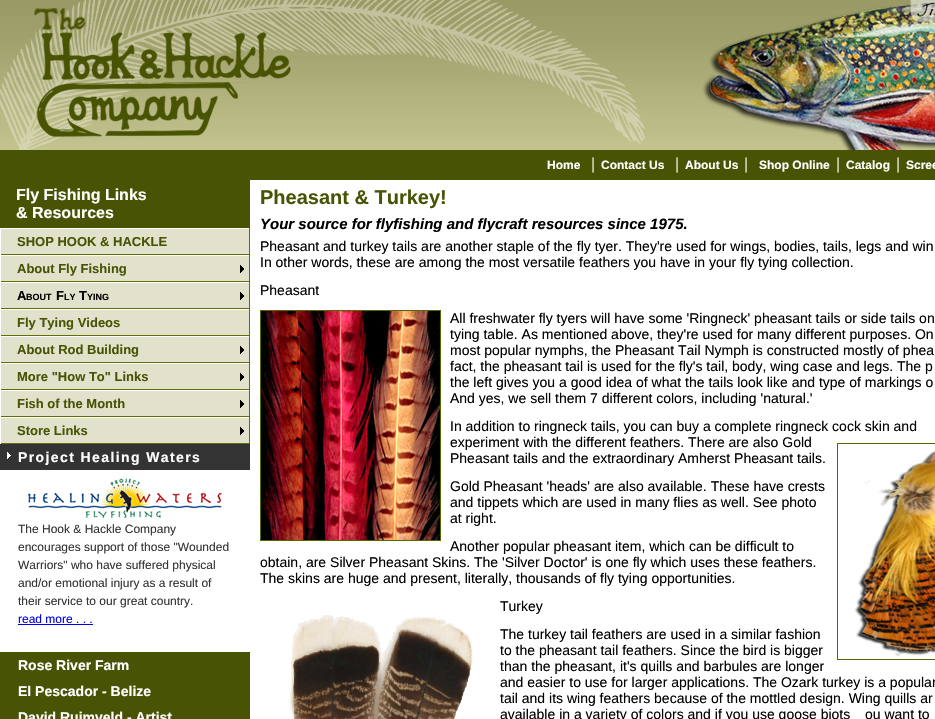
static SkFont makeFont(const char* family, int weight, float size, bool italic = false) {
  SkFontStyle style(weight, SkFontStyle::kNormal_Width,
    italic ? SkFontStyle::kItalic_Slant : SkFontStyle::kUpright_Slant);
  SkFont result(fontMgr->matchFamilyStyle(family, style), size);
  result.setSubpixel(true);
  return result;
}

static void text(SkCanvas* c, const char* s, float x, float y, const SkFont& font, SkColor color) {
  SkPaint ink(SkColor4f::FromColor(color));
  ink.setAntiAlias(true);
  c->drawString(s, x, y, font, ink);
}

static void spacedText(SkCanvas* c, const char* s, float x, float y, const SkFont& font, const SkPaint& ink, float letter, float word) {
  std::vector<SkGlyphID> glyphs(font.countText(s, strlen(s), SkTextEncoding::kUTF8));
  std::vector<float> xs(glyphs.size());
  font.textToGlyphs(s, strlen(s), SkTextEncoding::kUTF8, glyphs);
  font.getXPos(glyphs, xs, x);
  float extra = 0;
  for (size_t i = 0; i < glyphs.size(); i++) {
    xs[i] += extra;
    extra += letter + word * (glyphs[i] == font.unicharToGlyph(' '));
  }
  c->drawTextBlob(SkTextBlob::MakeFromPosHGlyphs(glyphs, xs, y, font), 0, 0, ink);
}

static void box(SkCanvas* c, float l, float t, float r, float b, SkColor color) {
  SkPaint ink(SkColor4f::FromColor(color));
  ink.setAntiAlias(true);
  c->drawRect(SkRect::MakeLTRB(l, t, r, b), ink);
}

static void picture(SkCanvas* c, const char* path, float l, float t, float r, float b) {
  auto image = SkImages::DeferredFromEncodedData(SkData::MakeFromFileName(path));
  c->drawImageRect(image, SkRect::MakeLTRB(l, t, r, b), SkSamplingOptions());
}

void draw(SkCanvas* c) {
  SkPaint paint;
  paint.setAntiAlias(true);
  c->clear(0xffe2e2cc);
  picture(c, "img_01.png", 0, 0, 935, 150);
  picture(c, "img_02.png", 0, 0, 645, 150);
  picture(c, "img_03.png", 702, 0, 935, 150);
  box(c, 0, 150, 935, 180, 0xff485304);
  SkFont face1 = makeFont("Liberation Sans", 700, 12);
  text(c, "Home", 547, 169, face1, 0xffffffff);
  SkFont face2 = makeFont("Liberation Sans", 400, 16);
  text(c, "|", 591, 169, face2, 0xffdedec8);
  text(c, "Contact Us", 601, 169, face1, 0xffffffff);
  text(c, "|", 675, 169, face2, 0xffdedec8);
  text(c, "About Us", 685, 169, face1, 0xffffffff);
  text(c, "|", 744, 169, face2, 0xffdedec8);
  text(c, "Shop Online", 759, 169, face1, 0xffffffff);
  text(c, "|", 836, 169, face2, 0xffdedec8);
  text(c, "Catalog", 846, 169, face1, 0xffffffff);
  text(c, "|", 896, 169, face2, 0xffdedec8);
  text(c, "Scree", 906, 169, face1, 0xffffffff);
  box(c, 0, 180, 250, 228, 0xff485304);
  SkFont face3 = makeFont("Liberation Sans", 700, 16);
  text(c, "Fly Fishing Links", 16, 200, face3, 0xffffffff);
  text(c, "& Resources", 16, 218, face3, 0xffffffff);
  box(c, 0, 228, 250, 229, 0xffffffff);
  box(c, 249, 228, 250, 255, 0xff606f04);
  box(c, 0, 254, 250, 255, 0xff606f04);
  box(c, 0, 228, 1, 255, 0xffffffff);
  SkFont face4 = makeFont("Liberation Sans", 700, 13);
  text(c, "SHOP HOOK & HACKLE", 17, 246, face4, 0xff485304);
  picture(c, "img_04.png", 240, 265, 244, 273);
  box(c, 0, 255, 250, 256, 0xffffffff);
  box(c, 249, 255, 250, 282, 0xff606f04);
  box(c, 0, 281, 250, 282, 0xff606f04);
  box(c, 0, 255, 1, 282, 0xffffffff);
  text(c, "About Fly Fishing", 17, 273, face4, 0xff485304);
  picture(c, "img_04.png", 240, 292, 244, 300);
  box(c, 0, 282, 250, 283, 0xffffffff);
  box(c, 249, 282, 250, 309, 0xff606f04);
  box(c, 0, 308, 250, 309, 0xff606f04);
  box(c, 0, 282, 1, 309, 0xffffffff);
  text(c, "A", 17, 300, face4, 0xff000000);
  SkFont face5 = makeFont("Liberation Sans", 700, 9);
  text(c, "BOUT", 26, 300, face5, 0xff000000);
  text(c, "F", 56, 300, face4, 0xff000000);
  text(c, "LY", 64, 300, face5, 0xff000000);
  text(c, "T", 79, 300, face4, 0xff000000);
  text(c, "YING", 87, 300, face5, 0xff000000);
  box(c, 0, 309, 250, 310, 0xffffffff);
  box(c, 249, 309, 250, 336, 0xff606f04);
  box(c, 0, 335, 250, 336, 0xff606f04);
  box(c, 0, 309, 1, 336, 0xffffffff);
  text(c, "Fly Tying Videos", 17, 327, face4, 0xff485304);
  picture(c, "img_04.png", 240, 346, 244, 354);
  box(c, 0, 336, 250, 337, 0xffffffff);
  box(c, 249, 336, 250, 363, 0xff606f04);
  box(c, 0, 362, 250, 363, 0xff606f04);
  box(c, 0, 336, 1, 363, 0xffffffff);
  text(c, "About Rod Building", 17, 354, face4, 0xff485304);
  picture(c, "img_04.png", 240, 373, 244, 381);
  box(c, 0, 363, 250, 364, 0xffffffff);
  box(c, 249, 363, 250, 390, 0xff606f04);
  box(c, 0, 389, 250, 390, 0xff606f04);
  box(c, 0, 363, 1, 390, 0xffffffff);
  text(c, "More \"How To\" Links", 17, 381, face4, 0xff485304);
  picture(c, "img_04.png", 240, 400, 244, 408);
  box(c, 0, 390, 250, 391, 0xffffffff);
  box(c, 249, 390, 250, 417, 0xff606f04);
  box(c, 0, 416, 250, 417, 0xff606f04);
  box(c, 0, 390, 1, 417, 0xffffffff);
  text(c, "Fish of the Month", 17, 408, face4, 0xff485304);
  picture(c, "img_04.png", 240, 427, 244, 435);
  box(c, 0, 417, 250, 418, 0xffffffff);
  box(c, 249, 417, 250, 444, 0xff606f04);
  box(c, 0, 443, 250, 444, 0xff606f04);
  box(c, 0, 417, 1, 444, 0xffffffff);
  text(c, "Store Links", 17, 435, face4, 0xff485304);
  box(c, 0, 444, 250, 470, 0xff333333);
  picture(c, "img_05.png", 7, 452, 11, 459);
  SkFont face6 = makeFont("Liberation Sans", 700, 14);
  paint.setColor(0xffffffff);
  spacedText(c, "Project Healing Waters", 18, 462, face6, paint, 1.4f, 0);
  box(c, 0, 470, 250, 652, 0xffffffff);
  picture(c, "img_06.png", 28, 478, 222, 519);
  SkFont face7 = makeFont("Liberation Sans", 400, 12);
  text(c, "The Hook & Hackle Company", 18, 533, face7, 0xff333333);
  text(c, "encourages support of those \"Wounded", 18, 551, face7, 0xff333333);
  text(c, "Warriors\" who have suffered physical", 18, 569, face7, 0xff333333);
  text(c, "and/or emotional injury as a result of", 18, 587, face7, 0xff333333);
  text(c, "their service to our great country.", 18, 605, face7, 0xff333333);
  text(c, "read more . . .", 18, 623, face7, 0xff0000ee);
  box(c, 18, 624, 93, 625, 0xff0000ee);
  box(c, 0, 652, 250, 719, 0xff485304);
  text(c, "Rose River Farm", 18, 670, face6, 0xffffffff);
  text(c, "El Pescador - Belize", 18, 696, face6, 0xffffffff);
  text(c, "David Ruimveld - Artist", 18, 722, face6, 0xffffffff);
  box(c, 250, 180, 935, 719, 0xffffffff);
  SkFont face8 = makeFont("Liberation Sans", 700, 20);
  text(c, "Pheasant & Turkey!", 260, 204, face8, 0xff485304);
  SkFont face9 = makeFont("Liberation Sans", 700, 15, true);
  text(c, "Your source for flyfishing and flycraft resources since 1975.", 260, 229, face9, 0xff000000);
  SkFont face10 = makeFont("Liberation Sans", 400, 14);
  text(c, "Pheasant and turkey tails are another staple of the fly tyer. They're used for wings, bodies, tails, legs and win", 260, 251, face10, 0xff000000);
  text(c, "In other words, these are among the most versatile feathers you have in your fly tying collection.", 260, 267, face10, 0xff000000);
  text(c, "Pheasant", 260, 295, face10, 0xff000000);
  paint.setStyle(SkPaint::kStroke_Style);
  paint.setStrokeWidth(1);
  paint.setColor(0xff556800);
  c->drawRect(SkRect::MakeLTRB(260.5f, 310.5f, 440.5f, 540.5f), paint);
  picture(c, "img_07.png", 261, 311, 440, 540);
  text(c, "All freshwater fly tyers will have some 'Ringneck' pheasant tails or side tails on", 450, 323, face10, 0xff000000);
  text(c, "tying table. As mentioned above, they're used for many different purposes. On", 450, 339, face10, 0xff000000);
  text(c, "most popular nymphs, the Pheasant Tail Nymph is constructed mostly of phea", 450, 355, face10, 0xff000000);
  text(c, "fact, the pheasant tail is used for the fly's tail, body, wing case and legs. The p", 450, 371, face10, 0xff000000);
  text(c, "the left gives you a good idea of what the tails look like and type of markings o", 450, 387, face10, 0xff000000);
  text(c, "And yes, we sell them 7 different colors, including 'natural.'", 450, 403, face10, 0xff000000);
  text(c, "In addition to ringneck tails, you can buy a complete ringneck cock skin and", 450, 431, face10, 0xff000000);
  text(c, "experiment with the different feathers. There are also Gold", 450, 447, face10, 0xff000000);
  c->drawRect(SkRect::MakeLTRB(837.5f, 443.5f, 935.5f, 659.5f), paint);
  picture(c, "img_08.png", 854, 450, 935, 656);
  text(c, "Pheasant tails and the extraordinary Amherst Pheasant tails.", 450, 463, face10, 0xff000000);
  text(c, "Gold Pheasant 'heads' are also available. These have crests", 450, 491, face10, 0xff000000);
  text(c, "and tippets which are used in many flies as well. See photo", 450, 507, face10, 0xff000000);
  text(c, "at right.", 450, 523, face10, 0xff000000);
  text(c, "Another popular pheasant item, which can be difficult to", 450, 551, face10, 0xff000000);
  text(c, "obtain, are Silver Pheasant Skins. The 'Silver Doctor' is one fly which uses these feathers.", 260, 567, face10, 0xff000000);
  text(c, "The skins are huge and present, literally, thousands of fly tying opportunities.", 260, 583, face10, 0xff000000);
  text(c, "Turkey", 500, 611, face10, 0xff000000);
  picture(c, "img_09.png", 289, 615, 473, 719);
  text(c, "The turkey tail feathers are used in a similar fashion", 500, 639, face10, 0xff000000);
  text(c, "to the pheasant tail feathers. Since the bird is bigger", 500, 655, face10, 0xff000000);
  text(c, "than the pheasant, it's quills and barbules are longer", 500, 671, face10, 0xff000000);
  text(c, "and easier to use for larger applications. The Ozark turkey is a popular", 500, 687, face10, 0xff000000);
  text(c, "tail and its wing feathers because of the mottled design. Wing quills ar", 500, 703, face10, 0xff000000);
  text(c, "available in a variety of colors and if you use goose biots", 500, 719, face10, 0xff000000);
  text(c, "ou want to", 865, 719, face10, 0xff000000);
}
